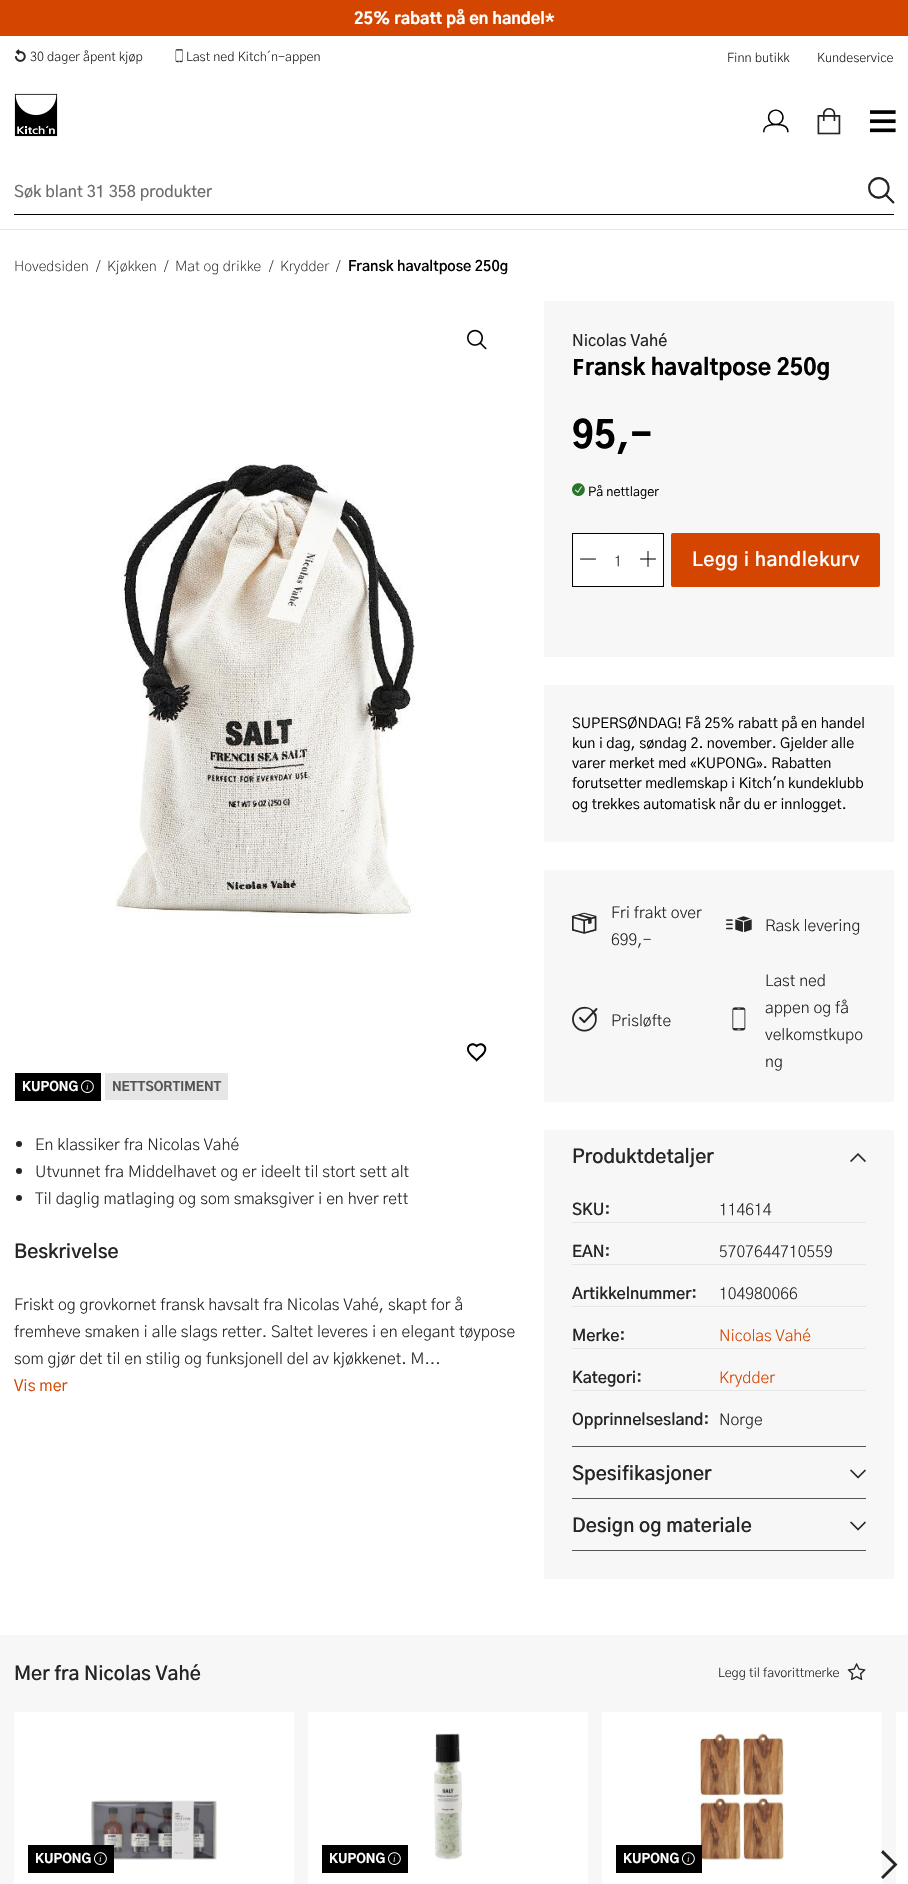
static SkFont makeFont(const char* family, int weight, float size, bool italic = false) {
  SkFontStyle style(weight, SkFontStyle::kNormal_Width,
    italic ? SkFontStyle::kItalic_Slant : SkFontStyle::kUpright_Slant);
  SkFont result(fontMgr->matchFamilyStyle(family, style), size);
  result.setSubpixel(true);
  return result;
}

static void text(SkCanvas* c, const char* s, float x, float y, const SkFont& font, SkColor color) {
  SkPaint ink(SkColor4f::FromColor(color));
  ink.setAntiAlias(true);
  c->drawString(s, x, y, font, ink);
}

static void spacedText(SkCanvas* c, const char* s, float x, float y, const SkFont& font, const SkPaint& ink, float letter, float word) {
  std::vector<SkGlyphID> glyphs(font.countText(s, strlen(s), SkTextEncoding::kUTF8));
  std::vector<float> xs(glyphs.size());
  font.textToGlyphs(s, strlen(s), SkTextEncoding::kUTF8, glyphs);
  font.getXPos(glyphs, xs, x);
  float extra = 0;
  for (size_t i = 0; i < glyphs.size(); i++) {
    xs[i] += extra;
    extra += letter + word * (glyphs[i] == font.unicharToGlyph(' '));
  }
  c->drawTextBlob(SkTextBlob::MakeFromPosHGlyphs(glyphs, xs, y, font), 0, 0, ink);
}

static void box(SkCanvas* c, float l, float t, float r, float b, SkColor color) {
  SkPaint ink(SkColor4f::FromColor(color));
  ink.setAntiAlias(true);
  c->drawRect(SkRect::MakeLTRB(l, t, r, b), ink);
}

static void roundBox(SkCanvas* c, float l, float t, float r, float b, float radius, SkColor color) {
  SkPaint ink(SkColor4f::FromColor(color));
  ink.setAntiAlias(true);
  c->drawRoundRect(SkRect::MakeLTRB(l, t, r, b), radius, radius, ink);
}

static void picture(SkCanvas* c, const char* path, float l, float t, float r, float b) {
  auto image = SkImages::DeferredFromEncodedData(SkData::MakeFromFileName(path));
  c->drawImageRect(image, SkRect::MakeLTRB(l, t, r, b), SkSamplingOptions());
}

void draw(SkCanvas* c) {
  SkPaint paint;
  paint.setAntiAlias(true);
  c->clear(0xffffffff);
  box(c, 0, 0, 908, 36, 0xffd34500);
  SkFont face1 = makeFont("Gothic A1", 800, 16);
  text(c, "25% rabatt på en handel*", 354, 24, face1, 0xffffffff);
  box(c, 0, 229, 908, 230, 0xffe6e6e6);
  picture(c, "img_01.png", 14, 49, 26, 62);
  SkFont face2 = makeFont("Gothic A1", 300, 12.75f);
  text(c, "30 dager åpent kjøp", 30, 61, face2, 0xff252525);
  picture(c, "img_02.png", 175, 49, 183, 63);
  text(c, "Last ned Kitch´n-appen", 186, 61, face2, 0xff252525);
  text(c, "Finn butikk", 727, 62, face2, 0xff252525);
  text(c, "Kundeservice", 817, 62, face2, 0xff252525);
  picture(c, "img_03.png", 14, 93, 58, 137);
  SkFont face3 = makeFont("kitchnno", 400, 26);
  text(c, "_", 763, 134, face3, 0xff000000);
  text(c, "`", 816, 134, face3, 0xff252525);
  picture(c, "img_04.png", 870, 110, 896, 133);
  SkFont face4 = makeFont("Gothic A1", 500, 16);
  text(c, "Søk blant 31 358 produkter", 14, 197, face4, 0xff6c6c6c);
  paint.setColor(0xff252525);
  spacedText(c, "p", 868, 203, face3, paint, 0.5f, 0);
  box(c, 14, 214, 894, 215, 0xff000000);
  SkFont face5 = makeFont("Gothic A1", 200, 14.4f);
  text(c, "Hovedsiden", 14, 271, face5, 0xff252525);
  text(c, "/", 96, 271, face5, 0xff252525);
  text(c, "Kjøkken", 107, 271, face5, 0xff252525);
  text(c, "/", 164, 271, face5, 0xff252525);
  text(c, "Mat og drikke", 175, 271, face5, 0xff252525);
  text(c, "/", 269, 271, face5, 0xff252525);
  text(c, "Krydder", 280, 271, face5, 0xff252525);
  text(c, "/", 336, 271, face5, 0xff252525);
  SkFont face6 = makeFont("Gothic A1", 600, 14.4f);
  text(c, "Fransk havaltpose 250g", 348, 271, face6, 0xff000000);
  picture(c, "img_05.png", 467, 329, 487, 350);
  picture(c, "img_06.png", 115, 464, 415, 918);
  SkFont face7 = makeFont("kitchnno", 400, 19.25f);
  text(c, "-", 467, 1062, face7, 0xff000000);
  box(c, 15, 1073, 101, 1101, 0xff000000);
  SkFont face8 = makeFont("Gothic A1", 800, 12.75f);
  text(c, "KUPONG", 22, 1091, face8, 0xffffffff);
  picture(c, "img_07.png", 81, 1080, 94, 1093);
  box(c, 105, 1073, 228, 1100, 0xffe6e6e6);
  text(c, "NETTSORTIMENT", 112, 1091, face8, 0xff555555);
  box(c, 544, 301, 894, 657, 0xfff8f7f7);
  text(c, "Nicolas Vahé", 572, 346, face4, 0xff252525);
  SkFont face9 = makeFont("Noto Sans", 700, 22.4f);
  text(c, "F", 572, 375, face9, 0xff000000);
  SkFont face10 = makeFont("Gothic A1", 800, 22.4f);
  text(c, "ransk havaltpose 250g", 585, 375, face10, 0xff000000);
  SkFont face11 = makeFont("Gothic A1", 800, 37);
  text(c, "95,-", 572, 448, face11, 0xff000000);
  picture(c, "img_08.png", 572, 483, 585, 496);
  SkFont face12 = makeFont("Gothic A1", 400, 12.75f);
  text(c, "På nettlager", 588, 496, face12, 0xff000000);
  paint.setStyle(SkPaint::kStroke_Style);
  paint.setStrokeWidth(1);
  paint.setColor(0xff000000);
  c->drawRect(SkRect::MakeLTRB(572.5f, 533.5f, 663.5f, 586.5f), paint);
  roundBox(c, 573, 534, 603, 586, 2, 0xffffffff);
  picture(c, "img_09.png", 580, 558, 596, 560);
  box(c, 603, 534, 633, 586, 0xffffffff);
  SkFont face13 = makeFont("Gothic A1", 300, 14.4f);
  text(c, "1", 614, 566, face13, 0xff252525);
  roundBox(c, 633, 534, 663, 586, 2, 0xffffffff);
  picture(c, "img_10.png", 640, 551, 656, 567);
  roundBox(c, 671, 533, 880, 587, 2, 0xffd34500);
  SkFont face14 = makeFont("Gothic A1", 600, 19.25f);
  paint.setStyle(SkPaint::kFill_Style);
  paint.setColor(0xffffffff);
  spacedText(c, "Legg i handlekurv", 692, 566, face14, paint, 0.5f, 0);
  box(c, 544, 685, 894, 842, 0xfff8f7f7);
  SkFont face15 = makeFont("Gothic A1", 400, 14.4f);
  text(c, "SUPERSØNDAG! Få 25% rabatt på en handel", 572, 728, face15, 0xff000000);
  text(c, "kun i dag, søndag 2. november. Gjelder alle", 572, 748, face15, 0xff000000);
  text(c, "varer merket med «KUPONG». Rabatten", 572, 768, face15, 0xff000000);
  text(c, "forutsetter medlemskap i Kitch'n kundeklubb", 572, 788, face15, 0xff000000);
  text(c, "og trekkes automatisk når du er innlogget.", 572, 809, face15, 0xff000000);
  box(c, 544, 870, 894, 1102, 0xfff8f7f7);
  text(c, "<", 572, 937, face3, 0xff252525);
  SkFont face16 = makeFont("Gothic A1", 300, 16);
  text(c, "Fri frakt over", 611, 918, face16, 0xff252525);
  text(c, "699,-", 611, 945, face16, 0xff252525);
  picture(c, "img_11.png", 726, 916, 752, 933);
  text(c, "Rask levering", 765, 931, face16, 0xff252525);
  picture(c, "img_12.png", 572, 1006, 598, 1032);
  text(c, "Prisløfte", 611, 1026, face16, 0xff252525);
  picture(c, "img_13.png", 732, 1007, 746, 1031);
  text(c, "Last ned", 765, 986, face16, 0xff252525);
  text(c, "appen og få", 765, 1013, face16, 0xff252525);
  text(c, "velkomstkupo", 765, 1040, face16, 0xff252525);
  text(c, "ng", 765, 1067, face16, 0xff252525);
  paint.setColor(0xff252525);
  c->drawCircle(19, 1144, 3, paint);
  text(c, "En klassiker fra Nicolas Vahé", 35, 1150, face16, 0xff252525);
  c->drawCircle(19, 1171, 3, paint);
  text(c, "Utvunnet fra Middelhavet og er ideelt til stort sett alt", 35, 1177, face16, 0xff252525);
  c->drawCircle(19, 1198, 3, paint);
  text(c, "Til daglig matlaging og som smaksgiver i en hver rett", 35, 1204, face16, 0xff252525);
  text(c, "Beskrivelse", 14, 1258, face14, 0xff252525);
  text(c, "Friskt og grovkornet fransk havsalt fra Nicolas Vahé, skapt for å", 14, 1310, face16, 0xff252525);
  text(c, "fremheve smaken i alle slags retter. Saltet leveres i en elegant tøypose", 14, 1337, face16, 0xff252525);
  text(c, "som gjør det til en stilig og funksjonell del av kjøkkenet. M...", 14, 1364, face16, 0xff252525);
  SkFont face17 = makeFont("Gothic A1", 400, 16);
  text(c, "Vis mer", 14, 1391, face17, 0xffd34500);
  box(c, 544, 1130, 894, 1579, 0xfff8f7f7);
  box(c, 572, 1446, 866, 1447, 0xff555555);
  text(c, "Produktdetaljer", 572, 1163, face14, 0xff252525);
  picture(c, "img_14.png", 850, 1153, 866, 1163);
  box(c, 572, 1222, 866, 1223, 0xffe6e6e6);
  SkFont face18 = makeFont("Gothic A1", 600, 16);
  text(c, "SKU:", 572, 1215, face18, 0xff252525);
  text(c, "114614", 719, 1215, face16, 0xff252525);
  box(c, 572, 1264, 866, 1265, 0xffe6e6e6);
  text(c, "EAN:", 572, 1257, face18, 0xff252525);
  text(c, "5707644710559", 719, 1257, face16, 0xff252525);
  box(c, 572, 1306, 866, 1307, 0xffe6e6e6);
  text(c, "Artikkelnummer:", 572, 1299, face18, 0xff252525);
  text(c, "104980066", 719, 1299, face16, 0xff252525);
  box(c, 572, 1348, 866, 1349, 0xffe6e6e6);
  text(c, "Merke:", 572, 1341, face18, 0xff252525);
  text(c, "Nicolas Vahé", 719, 1341, face16, 0xffd34500);
  box(c, 572, 1390, 866, 1391, 0xffe6e6e6);
  text(c, "Kategori:", 572, 1383, face18, 0xff252525);
  text(c, "Krydder", 719, 1383, face16, 0xffd34500);
  text(c, "Opprinnelsesland:", 572, 1425, face18, 0xff252525);
  text(c, "Norge", 719, 1425, face16, 0xff252525);
  box(c, 572, 1498, 866, 1499, 0xff555555);
  text(c, "Spesifikasjoner", 572, 1480, face14, 0xff252525);
  picture(c, "img_15.png", 850, 1469, 866, 1479);
  box(c, 572, 1550, 866, 1551, 0xff555555);
  text(c, "Design og materiale", 572, 1532, face14, 0xff252525);
  picture(c, "img_15.png", 850, 1521, 866, 1531);
  box(c, 0, 1635, 908, 1884, 0xfff8f7f7);
  text(c, "Mer fra Nicolas Vahé", 14, 1680, face14, 0xff252525);
  text(c, "Legg til favorittmerke", 718, 1677, face2, 0xff252525);
  picture(c, "img_16.png", 847, 1663, 866, 1681);
  box(c, 14, 1712, 294, 1884, 0xffffffff);
  picture(c, "img_17.png", 90, 1800, 217, 1860);
  box(c, 28, 1845, 114, 1873, 0xff000000);
  text(c, "KUPONG", 35, 1863, face8, 0xffffffff);
  picture(c, "img_07.png", 94, 1852, 107, 1865);
  box(c, 308, 1712, 588, 1884, 0xffffffff);
  box(c, 322, 1845, 408, 1873, 0xff000000);
  text(c, "KUPONG", 329, 1863, face8, 0xffffffff);
  picture(c, "img_07.png", 388, 1852, 401, 1865);
  picture(c, "img_18.png", 434, 1733, 462, 1860);
  box(c, 602, 1712, 882, 1884, 0xffffffff);
  picture(c, "img_19.png", 696, 1733, 784, 1861);
  box(c, 616, 1845, 702, 1873, 0xff000000);
  text(c, "KUPONG", 623, 1863, face8, 0xffffffff);
  picture(c, "img_07.png", 682, 1852, 695, 1865);
  box(c, 896, 1712, 908, 1884, 0xffffffff);
  c->drawPath(SkPathBuilder().moveTo(897.5f, 1864.5f).lineTo(883, 1850).lineTo(881, 1852.5f).lineTo(893.5f, 1864.5f).lineTo(881, 1877).lineTo(883, 1879).close().detach(), paint);
}
